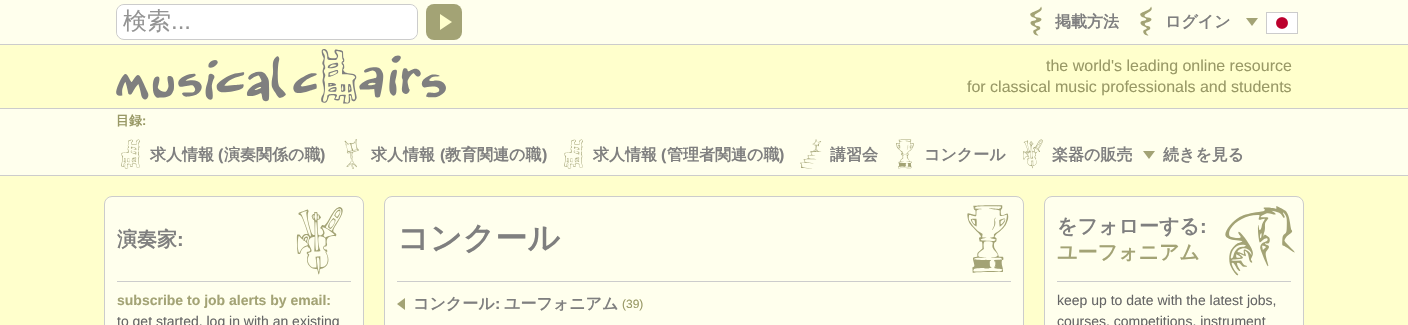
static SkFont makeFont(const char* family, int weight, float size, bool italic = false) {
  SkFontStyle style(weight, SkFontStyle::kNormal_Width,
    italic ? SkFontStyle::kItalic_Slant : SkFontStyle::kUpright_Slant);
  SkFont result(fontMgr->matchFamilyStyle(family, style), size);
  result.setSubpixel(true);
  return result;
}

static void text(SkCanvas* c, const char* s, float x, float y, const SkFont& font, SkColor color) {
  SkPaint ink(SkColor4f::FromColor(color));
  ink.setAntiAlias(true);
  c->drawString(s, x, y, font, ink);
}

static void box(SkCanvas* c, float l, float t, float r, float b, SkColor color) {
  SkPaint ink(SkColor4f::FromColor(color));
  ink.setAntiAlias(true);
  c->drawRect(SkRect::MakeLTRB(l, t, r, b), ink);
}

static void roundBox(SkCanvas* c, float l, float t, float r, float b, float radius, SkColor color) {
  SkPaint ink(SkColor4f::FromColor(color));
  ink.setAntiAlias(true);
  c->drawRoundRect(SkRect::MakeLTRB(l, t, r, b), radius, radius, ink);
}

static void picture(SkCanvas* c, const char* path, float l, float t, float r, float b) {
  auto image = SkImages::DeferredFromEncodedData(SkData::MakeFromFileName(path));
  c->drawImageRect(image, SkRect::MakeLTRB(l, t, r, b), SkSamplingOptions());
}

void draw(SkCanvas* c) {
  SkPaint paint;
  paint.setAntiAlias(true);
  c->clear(0xffffffcc);
  box(c, 0, 0, 1408, 44, 0xffffffed);
  box(c, 0, 44, 1408, 45, 0xffcccccc);
  paint.setColor(0xffffffff);
  c->drawRoundRect(SkRect::MakeLTRB(116.5f, 4.5f, 417.5f, 39.5f), 7.5f, 7.5f, paint);
  paint.setStyle(SkPaint::kStroke_Style);
  paint.setStrokeWidth(1);
  paint.setColor(0xffcccccc);
  c->drawRoundRect(SkRect::MakeLTRB(116.5f, 4.5f, 417.5f, 39.5f), 7.5f, 7.5f, paint);
  c->save();
  c->clipPath(SkPathBuilder().moveTo(124, 5).lineTo(410, 5).cubicTo(414, 5, 417, 8, 417, 12).lineTo(417, 32).cubicTo(417, 36, 414, 39, 410, 39).lineTo(124, 39).cubicTo(120, 39, 117, 36, 117, 32).lineTo(117, 12).cubicTo(117, 8, 120, 5, 124, 5).close().detach(), true);
  paint.setStyle(SkPaint::kFill_Style);
  paint.setColor(0xb3ffffff);
  c->drawPath(SkPathBuilder().moveTo(124, 5).lineTo(410, 5).cubicTo(414, 5, 417, 8, 417, 12).lineTo(417, 35).lineTo(117, 35).lineTo(117, 12).cubicTo(117, 8, 120, 5, 124, 5).close().detach(), paint);
  c->restore();
  SkFont face1 = makeFont("WenQuanYi Zen Hei", 500, 24);
  text(c, "検索", 123, 29, face1, 0xff949494);
  SkFont face2 = makeFont("Liberation Sans", 400, 24);
  text(c, "...", 171, 29, face2, 0xff949494);
  roundBox(c, 426, 4, 462, 40, 8, 0xffa3a375);
  paint.setColor(0xffffffcc);
  c->drawPath(SkPathBuilder().moveTo(440, 30).lineTo(440, 14).lineTo(452, 22).close().detach(), paint);
  picture(c, "img_01.png", 1030, 6, 1042, 36);
  SkFont face3 = makeFont("WenQuanYi Zen Hei", 700, 16);
  text(c, "掲載方法", 1055, 27, face3, 0xff7f7f7f);
  picture(c, "img_01.png", 1140, 6, 1152, 36);
  text(c, "ログイン", 1165, 27, face3, 0xff7f7f7f);
  paint.setColor(0xffa3a375);
  c->drawPath(SkPathBuilder().moveTo(1246, 18).lineTo(1258, 18).lineTo(1252, 26).close().detach(), paint);
  paint.setStyle(SkPaint::kStroke_Style);
  paint.setColor(0xffcccccc);
  c->drawRect(SkRect::MakeLTRB(1266.5f, 12.5f, 1297.5f, 33.5f), paint);
  picture(c, "img_02.png", 1267, 13, 1297, 33);
  picture(c, "img_03.png", 116, 49, 446, 104);
  SkFont face4 = makeFont("Liberation Sans", 400, 16);
  text(c, "the world's leading online resource", 1046, 71, face4, 0xff999966);
  text(c, "for classical music professionals and students", 967, 92, face4, 0xff999966);
  box(c, 0, 109, 1408, 175, 0xffffffed);
  box(c, 0, 108, 1408, 109, 0xffcccccc);
  box(c, 0, 175, 1408, 176, 0xffcccccc);
  SkFont face5 = makeFont("WenQuanYi Zen Hei", 700, 13);
  text(c, "目録", 116, 125, face5, 0xff999966);
  SkFont face6 = makeFont("Liberation Sans", 700, 13);
  text(c, ":", 142, 125, face6, 0xff999966);
  picture(c, "img_04.png", 121, 139, 140, 169);
  text(c, "求人情報", 150, 160, face3, 0xff7f7f7f);
  SkFont face7 = makeFont("Liberation Sans", 700, 16);
  text(c, "(", 218, 160, face7, 0xff7f7f7f);
  text(c, "演奏関係の職", 224, 160, face3, 0xff7f7f7f);
  text(c, ")", 320, 160, face7, 0xff7f7f7f);
  picture(c, "img_05.png", 344, 139, 359, 169);
  text(c, "求人情報", 371, 160, face3, 0xff7f7f7f);
  text(c, "(", 440, 160, face7, 0xff7f7f7f);
  text(c, "教育関連の職", 445, 160, face3, 0xff7f7f7f);
  text(c, ")", 542, 160, face7, 0xff7f7f7f);
  picture(c, "img_04.png", 564, 139, 583, 169);
  text(c, "求人情報", 593, 160, face3, 0xff7f7f7f);
  text(c, "(", 661, 160, face7, 0xff7f7f7f);
  text(c, "管理者関連の職", 667, 160, face3, 0xff7f7f7f);
  text(c, ")", 779, 160, face7, 0xff7f7f7f);
  picture(c, "img_06.png", 800, 139, 822, 169);
  text(c, "講習会", 830, 160, face3, 0xff7f7f7f);
  picture(c, "img_07.png", 896, 139, 914, 169);
  text(c, "コンクール", 924, 160, face3, 0xff7f7f7f);
  picture(c, "img_08.png", 1023, 139, 1043, 169);
  text(c, "楽器の販売", 1052, 160, face3, 0xff7f7f7f);
  paint.setStyle(SkPaint::kFill_Style);
  paint.setColor(0xffa3a375);
  c->drawPath(SkPathBuilder().moveTo(1143, 151).lineTo(1155, 151).lineTo(1149, 159).close().detach(), paint);
  text(c, "続きを見る", 1163, 160, face3, 0xff7f7f7f);
  paint.setColor(0xffffffed);
  c->drawRoundRect(SkRect::MakeLTRB(104.5f, 196.5f, 363.5f, 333.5f), 7.5f, 7.5f, paint);
  paint.setStyle(SkPaint::kStroke_Style);
  paint.setColor(0xffcccccc);
  c->drawRoundRect(SkRect::MakeLTRB(104.5f, 196.5f, 363.5f, 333.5f), 7.5f, 7.5f, paint);
  SkFont face8 = makeFont("WenQuanYi Zen Hei", 700, 20);
  text(c, "演奏家", 117, 246, face8, 0xff7f7f7f);
  SkFont face9 = makeFont("Liberation Sans", 700, 20);
  text(c, ":", 177, 246, face9, 0xff7f7f7f);
  picture(c, "img_09.png", 296, 207, 343, 275);
  box(c, 117, 281, 351, 282, 0xffcccccc);
  SkFont face10 = makeFont("Liberation Sans", 700, 14);
  text(c, "subscribe to job alerts by email:", 117, 305, face10, 0xffa3a375);
  SkFont face11 = makeFont("Liberation Sans", 400, 14);
  text(c, "to get started, log in with an existing", 117, 326, face11, 0xff666666);
  paint.setStyle(SkPaint::kFill_Style);
  paint.setColor(0xffffffed);
  c->drawRoundRect(SkRect::MakeLTRB(384.5f, 196.5f, 1023.5f, 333.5f), 7.5f, 7.5f, paint);
  paint.setStyle(SkPaint::kStroke_Style);
  paint.setColor(0xffcccccc);
  c->drawRoundRect(SkRect::MakeLTRB(384.5f, 196.5f, 1023.5f, 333.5f), 7.5f, 7.5f, paint);
  SkFont face12 = makeFont("WenQuanYi Zen Hei", 700, 32);
  text(c, "コンクール", 397, 249, face12, 0xff7f7f7f);
  picture(c, "img_10.png", 967, 205, 1009, 273);
  box(c, 397, 281, 1011, 282, 0xffcccccc);
  paint.setStyle(SkPaint::kFill_Style);
  paint.setColor(0xffa3a375);
  c->drawPath(SkPathBuilder().moveTo(405, 298).lineTo(405, 310).lineTo(397, 304).close().detach(), paint);
  text(c, "コンクール", 413, 309, face3, 0xff7f7f7f);
  text(c, ":", 495, 309, face7, 0xff7f7f7f);
  text(c, "ユーフォニアム", 504, 309, face3, 0xff7f7f7f);
  SkFont face13 = makeFont("Liberation Sans", 400, 12);
  text(c, "(39)", 622, 308, face13, 0xff999966);
  paint.setColor(0xffffffed);
  c->drawRoundRect(SkRect::MakeLTRB(1044.5f, 196.5f, 1303.5f, 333.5f), 7.5f, 7.5f, paint);
  paint.setStyle(SkPaint::kStroke_Style);
  paint.setColor(0xffcccccc);
  c->drawRoundRect(SkRect::MakeLTRB(1044.5f, 196.5f, 1303.5f, 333.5f), 7.5f, 7.5f, paint);
  text(c, "をフォローする", 1057, 233, face8, 0xff7f7f7f);
  text(c, ":", 1200, 233, face9, 0xff7f7f7f);
  text(c, "ユーフォニアム", 1057, 259, face8, 0xffa3a375);
  picture(c, "img_11.png", 1225, 206, 1295, 276);
  box(c, 1057, 281, 1291, 282, 0xffcccccc);
  text(c, "keep up to date with the latest jobs,", 1057, 305, face11, 0xff666666);
  text(c, "courses, competitions, instrument", 1057, 326, face11, 0xff666666);
}
